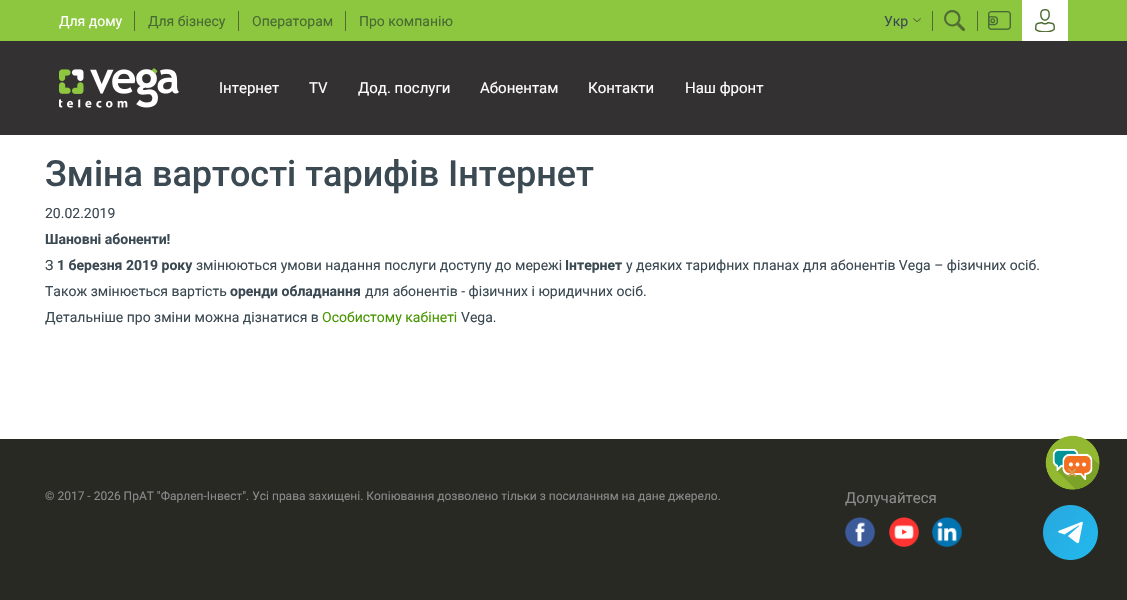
static SkFont makeFont(const char* family, int weight, float size, bool italic = false) {
  SkFontStyle style(weight, SkFontStyle::kNormal_Width,
    italic ? SkFontStyle::kItalic_Slant : SkFontStyle::kUpright_Slant);
  SkFont result(fontMgr->matchFamilyStyle(family, style), size);
  result.setSubpixel(true);
  return result;
}

static void text(SkCanvas* c, const char* s, float x, float y, const SkFont& font, SkColor color) {
  SkPaint ink(SkColor4f::FromColor(color));
  ink.setAntiAlias(true);
  c->drawString(s, x, y, font, ink);
}

static void box(SkCanvas* c, float l, float t, float r, float b, SkColor color) {
  SkPaint ink(SkColor4f::FromColor(color));
  ink.setAntiAlias(true);
  c->drawRect(SkRect::MakeLTRB(l, t, r, b), ink);
}

static void picture(SkCanvas* c, const char* path, float l, float t, float r, float b) {
  auto image = SkImages::DeferredFromEncodedData(SkData::MakeFromFileName(path));
  c->drawImageRect(image, SkRect::MakeLTRB(l, t, r, b), SkSamplingOptions());
}

void draw(SkCanvas* c) {
  SkPaint paint;
  paint.setAntiAlias(true);
  c->clear(0xffffffff);
  box(c, 0, 0, 1127, 41, 0xff8dc63f);
  SkFont face1 = makeFont("Roboto", 400, 14);
  text(c, "Для дому", 59, 26, face1, 0xffffffff);
  box(c, 134, 11, 135, 31, 0xff4f6c32);
  text(c, "Для бізнесу", 148, 26, face1, 0xff466b33);
  box(c, 238, 11, 239, 31, 0xff4f6c32);
  text(c, "Операторам", 252, 26, face1, 0xff466b33);
  box(c, 345, 11, 346, 31, 0xff4f6c32);
  text(c, "Про компанію", 359, 26, face1, 0xff466b33);
  text(c, "Укр", 884, 26, face1, 0xff3b4952);
  picture(c, "img_01.png", 913, 18, 921, 22);
  box(c, 932, 11, 933, 31, 0xff4f6c32);
  picture(c, "img_02.png", 944, 10, 965, 31);
  box(c, 977, 11, 978, 31, 0xff4f6c32);
  picture(c, "img_03.png", 988, 11, 1011, 30);
  box(c, 1022, 0, 1068, 41, 0xffffffff);
  picture(c, "img_04.png", 1035, 9, 1055, 32);
  box(c, 0, 41, 1127, 135, 0xff333131);
  picture(c, "img_05.png", 59, 68, 179, 108);
  SkFont face2 = makeFont("Roboto", 400, 15);
  text(c, "Інтернет", 219, 93, face2, 0xffffffff);
  text(c, "TV", 309, 93, face2, 0xffffffff);
  text(c, "Дод. послуги", 358, 93, face2, 0xffffffff);
  text(c, "Абонентам", 480, 93, face2, 0xffffffff);
  text(c, "Контакти", 588, 93, face2, 0xffffffff);
  text(c, "Наш фронт", 685, 93, face2, 0xffffffff);
  SkFont face3 = makeFont("Roboto", 500, 36);
  text(c, "Зміна вартості тарифів Інтернет", 45, 186, face3, 0xff3b4952);
  text(c, "20.02.2019", 45, 218, face1, 0xff3b4952);
  SkFont face4 = makeFont("Roboto", 700, 14);
  text(c, "Шановні абоненти!", 45, 244, face4, 0xff3b4952);
  text(c, "З", 45, 270, face1, 0xff3b4952);
  text(c, "1 березня 2019 року", 57, 270, face4, 0xff3b4952);
  text(c, "змінюються умови надання послуги доступу до мережі", 196, 270, face1, 0xff3b4952);
  text(c, "Інтернет", 565, 270, face4, 0xff3b4952);
  text(c, "у деяких тарифних планах для абонентів Vega – фізичних осіб.", 626, 270, face1, 0xff3b4952);
  text(c, "Також змінюється вартість", 45, 296, face1, 0xff3b4952);
  text(c, "оренди обладнання", 230, 296, face4, 0xff3b4952);
  text(c, "для абонентів - фізичних і юридичних осіб.", 365, 296, face1, 0xff3b4952);
  text(c, "Детальніше про зміни можна дізнатися в", 45, 322, face1, 0xff3b4952);
  text(c, "Особистому кабінеті", 322, 322, face1, 0xff489600);
  text(c, "Vega.", 461, 322, face1, 0xff3b4952);
  box(c, 0, 439, 1127, 600, 0xff292924);
  picture(c, "img_06.png", 1045, 435, 1100, 490);
  SkFont face5 = makeFont("DejaVu Sans", 700, 14);
  text(c, "✕", 1066, 478, face5, 0xffd89b53);
  SkFont face6 = makeFont("Roboto", 400, 12);
  text(c, "© 2017 - 2026 ПрАТ \"Фарлеп-Інвест\". Усі права захищені. Копіювання дозволено тільки з посиланням на дане джерело.", 45, 500, face6, 0xff8b8a8a);
  text(c, "Долучайтеся", 845, 503, face2, 0xff8b8a8a);
  picture(c, "img_07.png", 845, 517, 875, 547);
  picture(c, "img_08.png", 889, 517, 919, 547);
  picture(c, "img_09.png", 932, 517, 962, 547);
  picture(c, "img_10.png", 1043, 505, 1098, 560);
}
